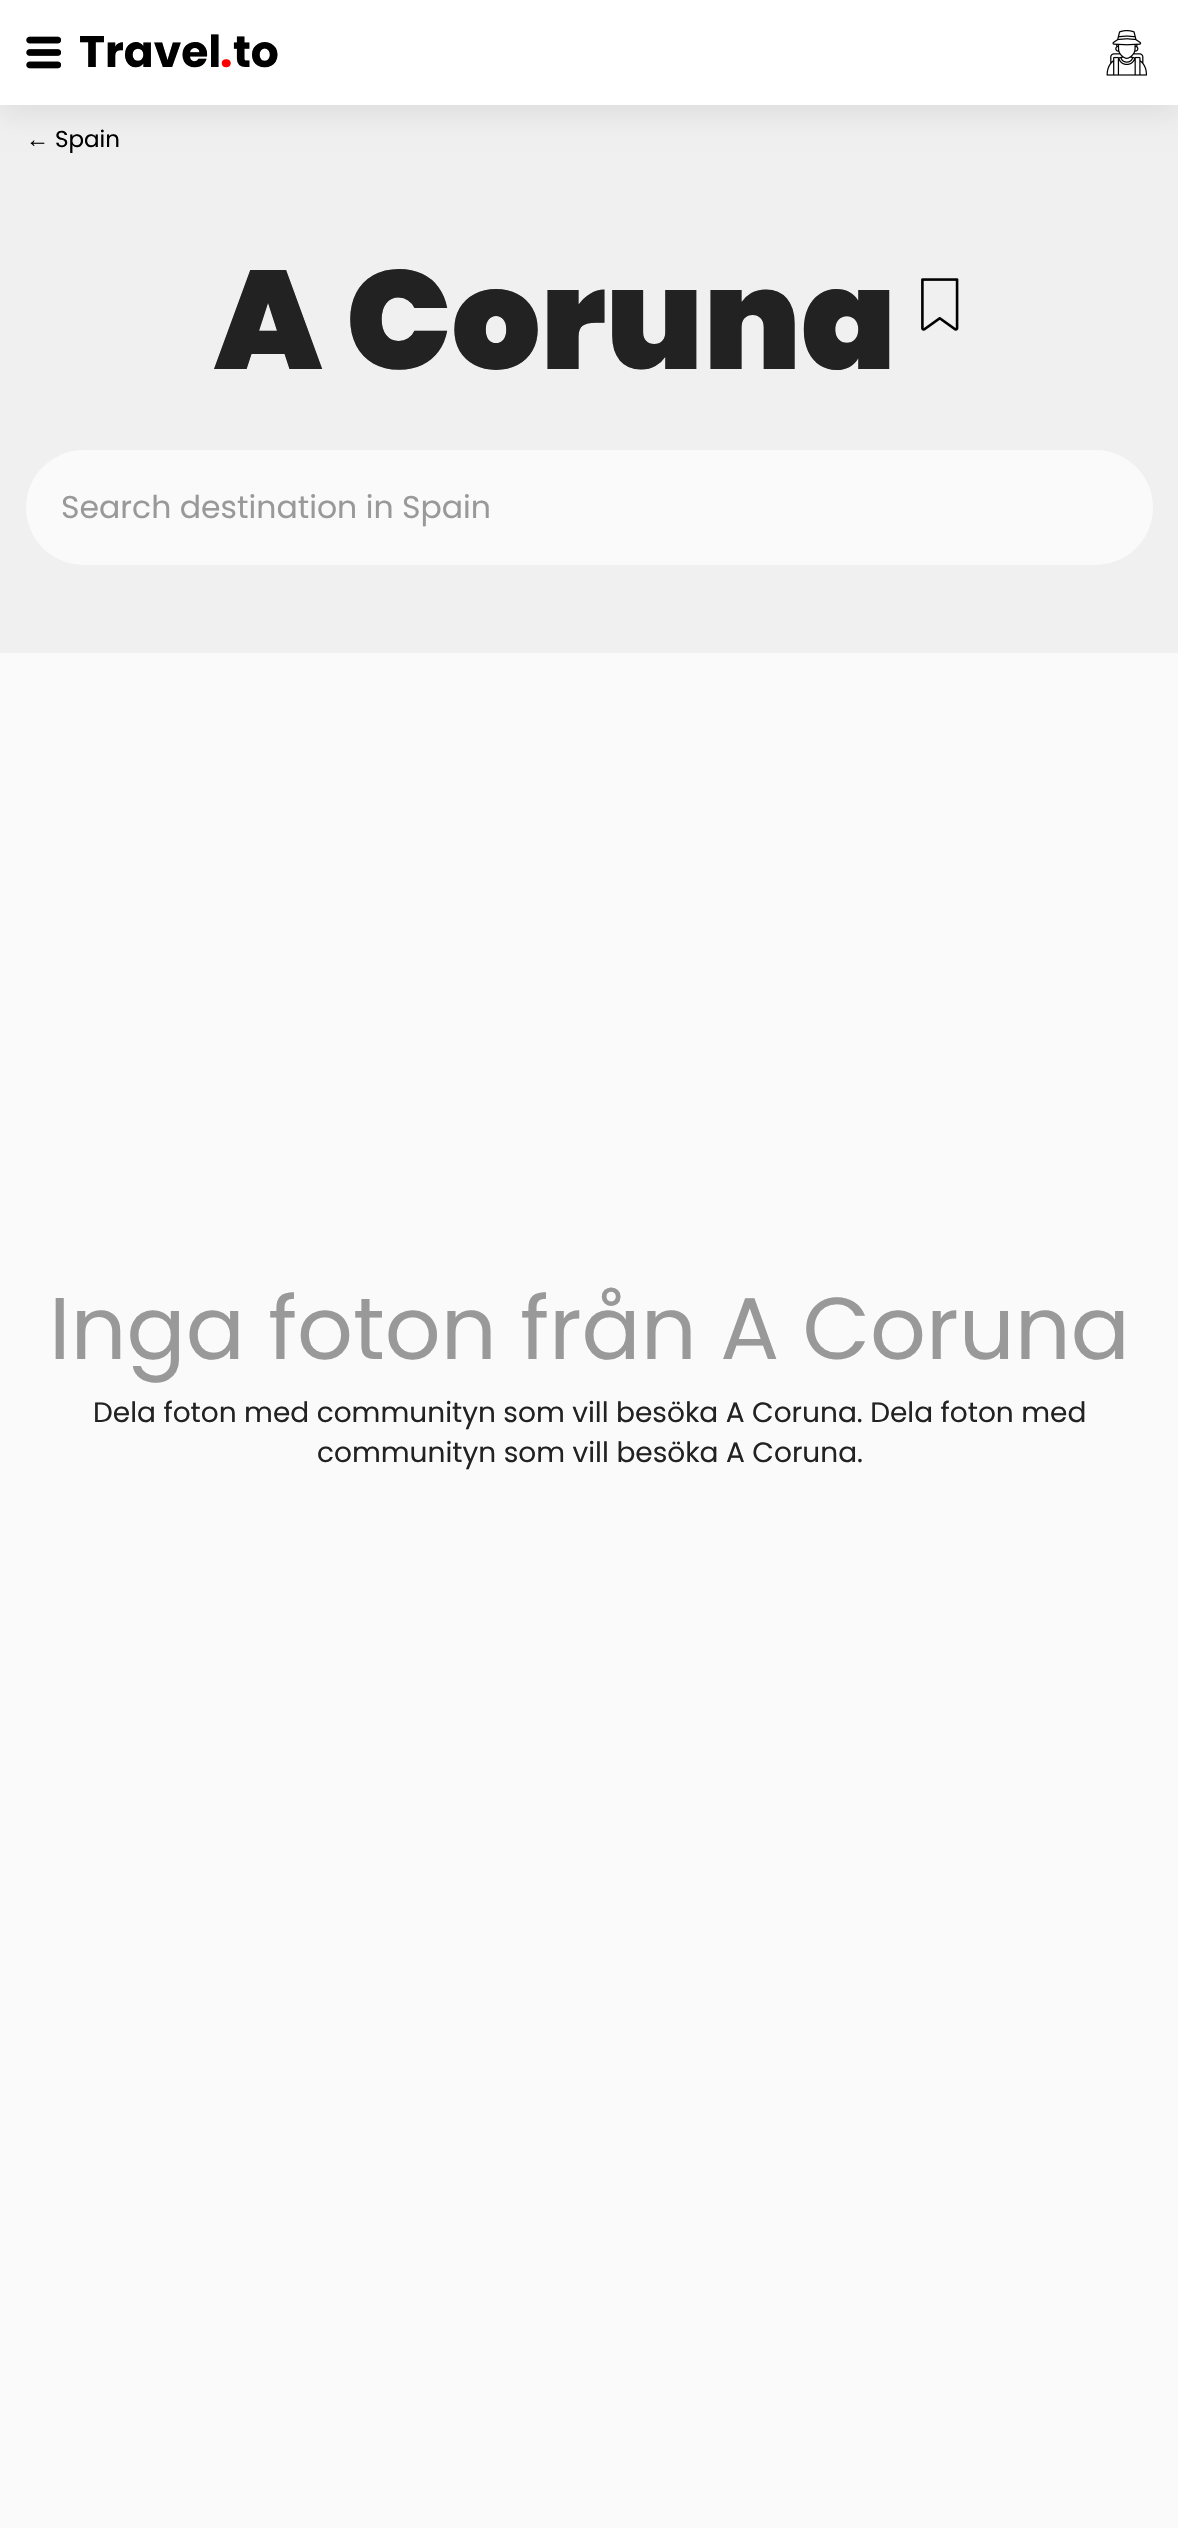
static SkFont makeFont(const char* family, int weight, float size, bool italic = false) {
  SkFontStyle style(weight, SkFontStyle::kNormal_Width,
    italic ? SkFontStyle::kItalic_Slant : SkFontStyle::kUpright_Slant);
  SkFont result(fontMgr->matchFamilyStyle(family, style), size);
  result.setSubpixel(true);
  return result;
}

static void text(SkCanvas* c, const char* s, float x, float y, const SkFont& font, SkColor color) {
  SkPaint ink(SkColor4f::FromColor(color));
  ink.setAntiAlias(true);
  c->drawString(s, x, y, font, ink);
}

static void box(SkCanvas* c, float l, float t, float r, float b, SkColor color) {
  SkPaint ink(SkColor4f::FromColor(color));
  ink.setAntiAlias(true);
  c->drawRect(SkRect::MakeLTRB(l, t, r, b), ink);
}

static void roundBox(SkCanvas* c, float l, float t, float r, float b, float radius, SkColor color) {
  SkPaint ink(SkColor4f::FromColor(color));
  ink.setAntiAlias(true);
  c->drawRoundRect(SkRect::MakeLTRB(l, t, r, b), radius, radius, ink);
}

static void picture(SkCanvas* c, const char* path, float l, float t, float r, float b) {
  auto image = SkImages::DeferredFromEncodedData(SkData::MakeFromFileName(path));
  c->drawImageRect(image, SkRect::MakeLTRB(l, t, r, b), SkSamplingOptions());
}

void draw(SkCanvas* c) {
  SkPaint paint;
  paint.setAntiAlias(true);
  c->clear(0xfffafafa);
  box(c, 0, 105, 1178, 653, 0xfff0f0f0);
  paint.setColor(0x14000000);
  paint.setMaskFilter(SkMaskFilter::MakeBlur(kNormal_SkBlurStyle, 13));
  c->drawRect(SkRect::MakeLTRB(0, 9, 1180, 114), paint);
  paint.setMaskFilter(nullptr);
  box(c, 0, 0, 1178, 105, 0xffffffff);
  picture(c, "img_01.png", 26, 36, 61, 69);
  SkFont face1 = makeFont("Poppins", 700, 44);
  text(c, "Travel", 79, 67, face1, 0xff000000);
  text(c, ".", 220, 67, face1, 0xffff0000);
  text(c, "to", 233, 67, face1, 0xff000000);
  picture(c, "img_02.png", 1106, 30, 1148, 76);
  SkFont face2 = makeFont("Liberation Sans", 400, 23);
  text(c, "←", 26, 147, face2, 0xff000000);
  SkFont face3 = makeFont("Poppins", 400, 23);
  text(c, "Spain", 55, 147, face3, 0xff000000);
  SkFont face4 = makeFont("Poppins", 900, 140);
  text(c, "A Coruna", 214, 369, face4, 0xff222222);
  picture(c, "img_03.png", 921, 278, 959, 331);
  roundBox(c, 26, 450, 1153, 565, 57.5f, 0xfffafafa);
  SkFont face5 = makeFont("Poppins", 400, 31.5f);
  text(c, "Search destination in Spain", 61, 518, face5, 0xff999999);
  SkFont face6 = makeFont("Poppins", 400, 87.5f);
  text(c, "Inga foton från A Coruna", 49, 1359, face6, 0xff999999);
  SkFont face7 = makeFont("Poppins", 400, 28);
  text(c, "Dela foton med communityn som vill besöka A Coruna. Dela foton med", 93, 1422, face7, 0xff222222);
  text(c, "communityn som vill besöka A Coruna.", 317, 1462, face7, 0xff222222);
}
